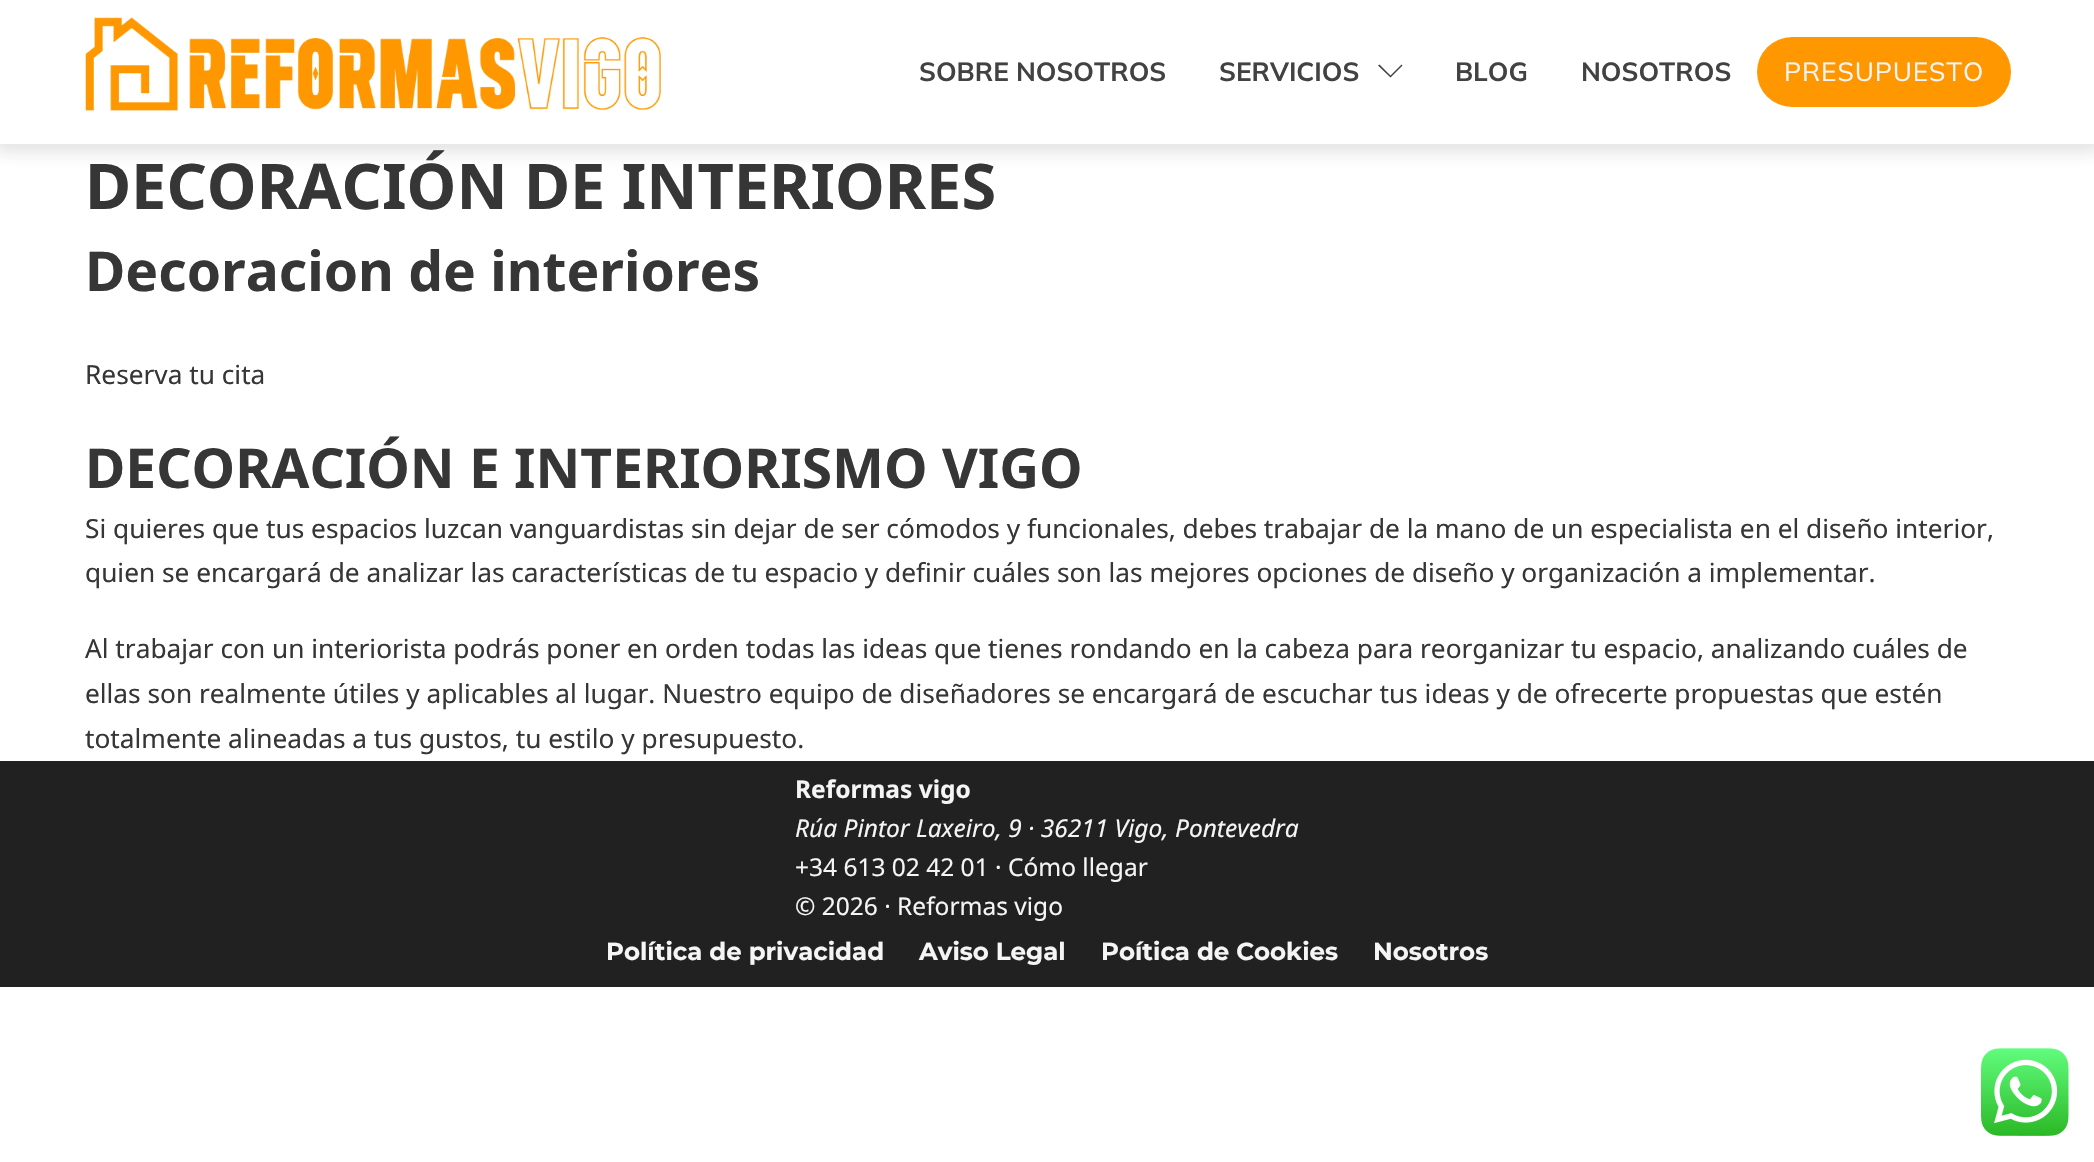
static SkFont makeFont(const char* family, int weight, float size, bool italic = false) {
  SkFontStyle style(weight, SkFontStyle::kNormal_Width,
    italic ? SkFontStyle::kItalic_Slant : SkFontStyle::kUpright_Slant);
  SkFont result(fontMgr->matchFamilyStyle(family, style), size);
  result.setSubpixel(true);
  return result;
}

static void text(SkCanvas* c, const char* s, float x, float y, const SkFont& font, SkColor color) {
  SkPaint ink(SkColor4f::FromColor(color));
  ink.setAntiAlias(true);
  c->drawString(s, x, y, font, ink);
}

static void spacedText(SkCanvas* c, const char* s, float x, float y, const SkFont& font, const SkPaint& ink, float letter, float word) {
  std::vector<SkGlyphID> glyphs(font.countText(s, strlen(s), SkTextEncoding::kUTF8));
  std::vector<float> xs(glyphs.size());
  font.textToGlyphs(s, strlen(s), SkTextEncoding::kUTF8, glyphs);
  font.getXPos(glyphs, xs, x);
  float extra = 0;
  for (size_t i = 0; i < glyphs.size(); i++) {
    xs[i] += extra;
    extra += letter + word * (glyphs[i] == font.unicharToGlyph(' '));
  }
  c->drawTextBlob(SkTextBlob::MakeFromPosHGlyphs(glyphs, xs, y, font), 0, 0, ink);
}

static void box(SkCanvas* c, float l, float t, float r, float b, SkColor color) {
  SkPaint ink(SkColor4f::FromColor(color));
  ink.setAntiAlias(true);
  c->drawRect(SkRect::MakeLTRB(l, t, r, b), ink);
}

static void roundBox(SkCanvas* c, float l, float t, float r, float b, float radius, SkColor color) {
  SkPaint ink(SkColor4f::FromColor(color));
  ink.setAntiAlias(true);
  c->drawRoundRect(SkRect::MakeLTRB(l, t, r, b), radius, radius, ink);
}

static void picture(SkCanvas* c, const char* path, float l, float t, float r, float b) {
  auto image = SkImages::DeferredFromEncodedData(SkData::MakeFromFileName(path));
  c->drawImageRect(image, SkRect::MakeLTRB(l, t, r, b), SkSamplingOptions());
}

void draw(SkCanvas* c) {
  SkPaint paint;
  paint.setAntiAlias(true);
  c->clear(0xffffffff);
  c->save();
  c->clipPath(SkPathBuilder(SkPathFillType::kEvenOdd).moveTo(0, 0).lineTo(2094, 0).lineTo(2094, 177).lineTo(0, 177).close().moveTo(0, 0).lineTo(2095, 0).lineTo(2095, 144).lineTo(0, 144).close().detach(), true);
  paint.setColor(0x21212121);
  paint.setMaskFilter(SkMaskFilter::MakeBlur(kNormal_SkBlurStyle, 8));
  c->drawRect(SkRect::MakeLTRB(-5, -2, 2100, 152), paint);
  paint.setMaskFilter(nullptr);
  c->restore();
  picture(c, "img_01.png", 85, 17, 661, 111);
  SkFont face1 = makeFont("Mulish", 700, 26.25f);
  text(c, "SOBRE NOSOTROS", 919, 81, face1, 0xff424242);
  text(c, "SERVICIOS", 1219, 81, face1, 0xff424242);
  paint.setColor(0xff424242);
  c->drawPath(SkPathBuilder().moveTo(1402.5f, 65.5f).lineTo(1390.5f, 77.5f).lineTo(1378, 65.5f).lineTo(1379.5f, 64.5f).lineTo(1390.5f, 75.5f).lineTo(1401.5f, 64.5f).close().detach(), paint);
  text(c, "BLOG", 1455, 81, face1, 0xff424242);
  text(c, "NOSOTROS", 1581, 81, face1, 0xff424242);
  roundBox(c, 1757, 37, 2011, 107, 35, 0xffff9800);
  SkFont face2 = makeFont("Mulish", 400, 26.25f);
  paint.setColor(0xfff5f5f5);
  spacedText(c, "PRESUPUESTO", 1784, 81, face2, paint, 0.9f, 0);
  SkFont face3 = makeFont("Noto Sans", 700, 63);
  text(c, "DECORACIÓN DE INTERIORES", 85, 209, face3, 0xff363636);
  SkFont face4 = makeFont("Noto Sans", 700, 55.1f);
  text(c, "Decoracion de interiores", 85, 291, face4, 0xff363636);
  SkFont face5 = makeFont("Noto Sans", 400, 26.25f);
  text(c, "Reserva tu cita", 85, 384, face5, 0xff363636);
  text(c, "DECORACIÓN E INTERIORISMO VIGO", 85, 488, face4, 0xff363636);
  text(c, "Si quieres que tus espacios luzcan vanguardistas sin dejar de ser cómodos y funcionales, debes trabajar de la mano de un especialista en el diseño interior,", 85, 538, face5, 0xff363636);
  text(c, "quien se encargará de analizar las características de tu espacio y definir cuáles son las mejores opciones de diseño y organización a implementar.", 85, 582, face5, 0xff363636);
  text(c, "Al trabajar con un interiorista podrás poner en orden todas las ideas que tienes rondando en la cabeza para reorganizar tu espacio, analizando cuáles de", 85, 658, face5, 0xff363636);
  text(c, "ellas son realmente útiles y aplicables al lugar. Nuestro equipo de diseñadores se encargará de escuchar tus ideas y de ofrecerte propuestas que estén", 85, 703, face5, 0xff363636);
  text(c, "totalmente alineadas a tus gustos, tu estilo y presupuesto.", 85, 748, face5, 0xff363636);
  box(c, 0, 761, 2094, 987, 0xff212121);
  SkFont face6 = makeFont("Noto Sans", 700, 24.5f);
  text(c, "Reformas vigo", 795, 798, face6, 0xfff5f5f5);
  SkFont face7 = makeFont("Noto Sans", 400, 24.5f, true);
  text(c, "Rúa Pintor Laxeiro, 9 · 36211 Vigo, Pontevedra", 795, 837, face7, 0xfff5f5f5);
  SkFont face8 = makeFont("Noto Sans", 400, 24.5f);
  text(c, "+34 613 02 42 01 · Cómo llegar", 795, 876, face8, 0xfff5f5f5);
  text(c, "© 2026 · Reformas vigo", 795, 915, face8, 0xfff5f5f5);
  SkFont face9 = makeFont("Montserrat", 700, 24.5f);
  text(c, "Política de privacidad", 606, 960, face9, 0xfff5f5f5);
  text(c, "Aviso Legal", 919, 960, face9, 0xfff5f5f5);
  text(c, "Poítica de Cookies", 1101, 960, face9, 0xfff5f5f5);
  text(c, "Nosotros", 1373, 960, face9, 0xfff5f5f5);
  picture(c, "img_02.png", 1981, 1048, 2069, 1136);
}
